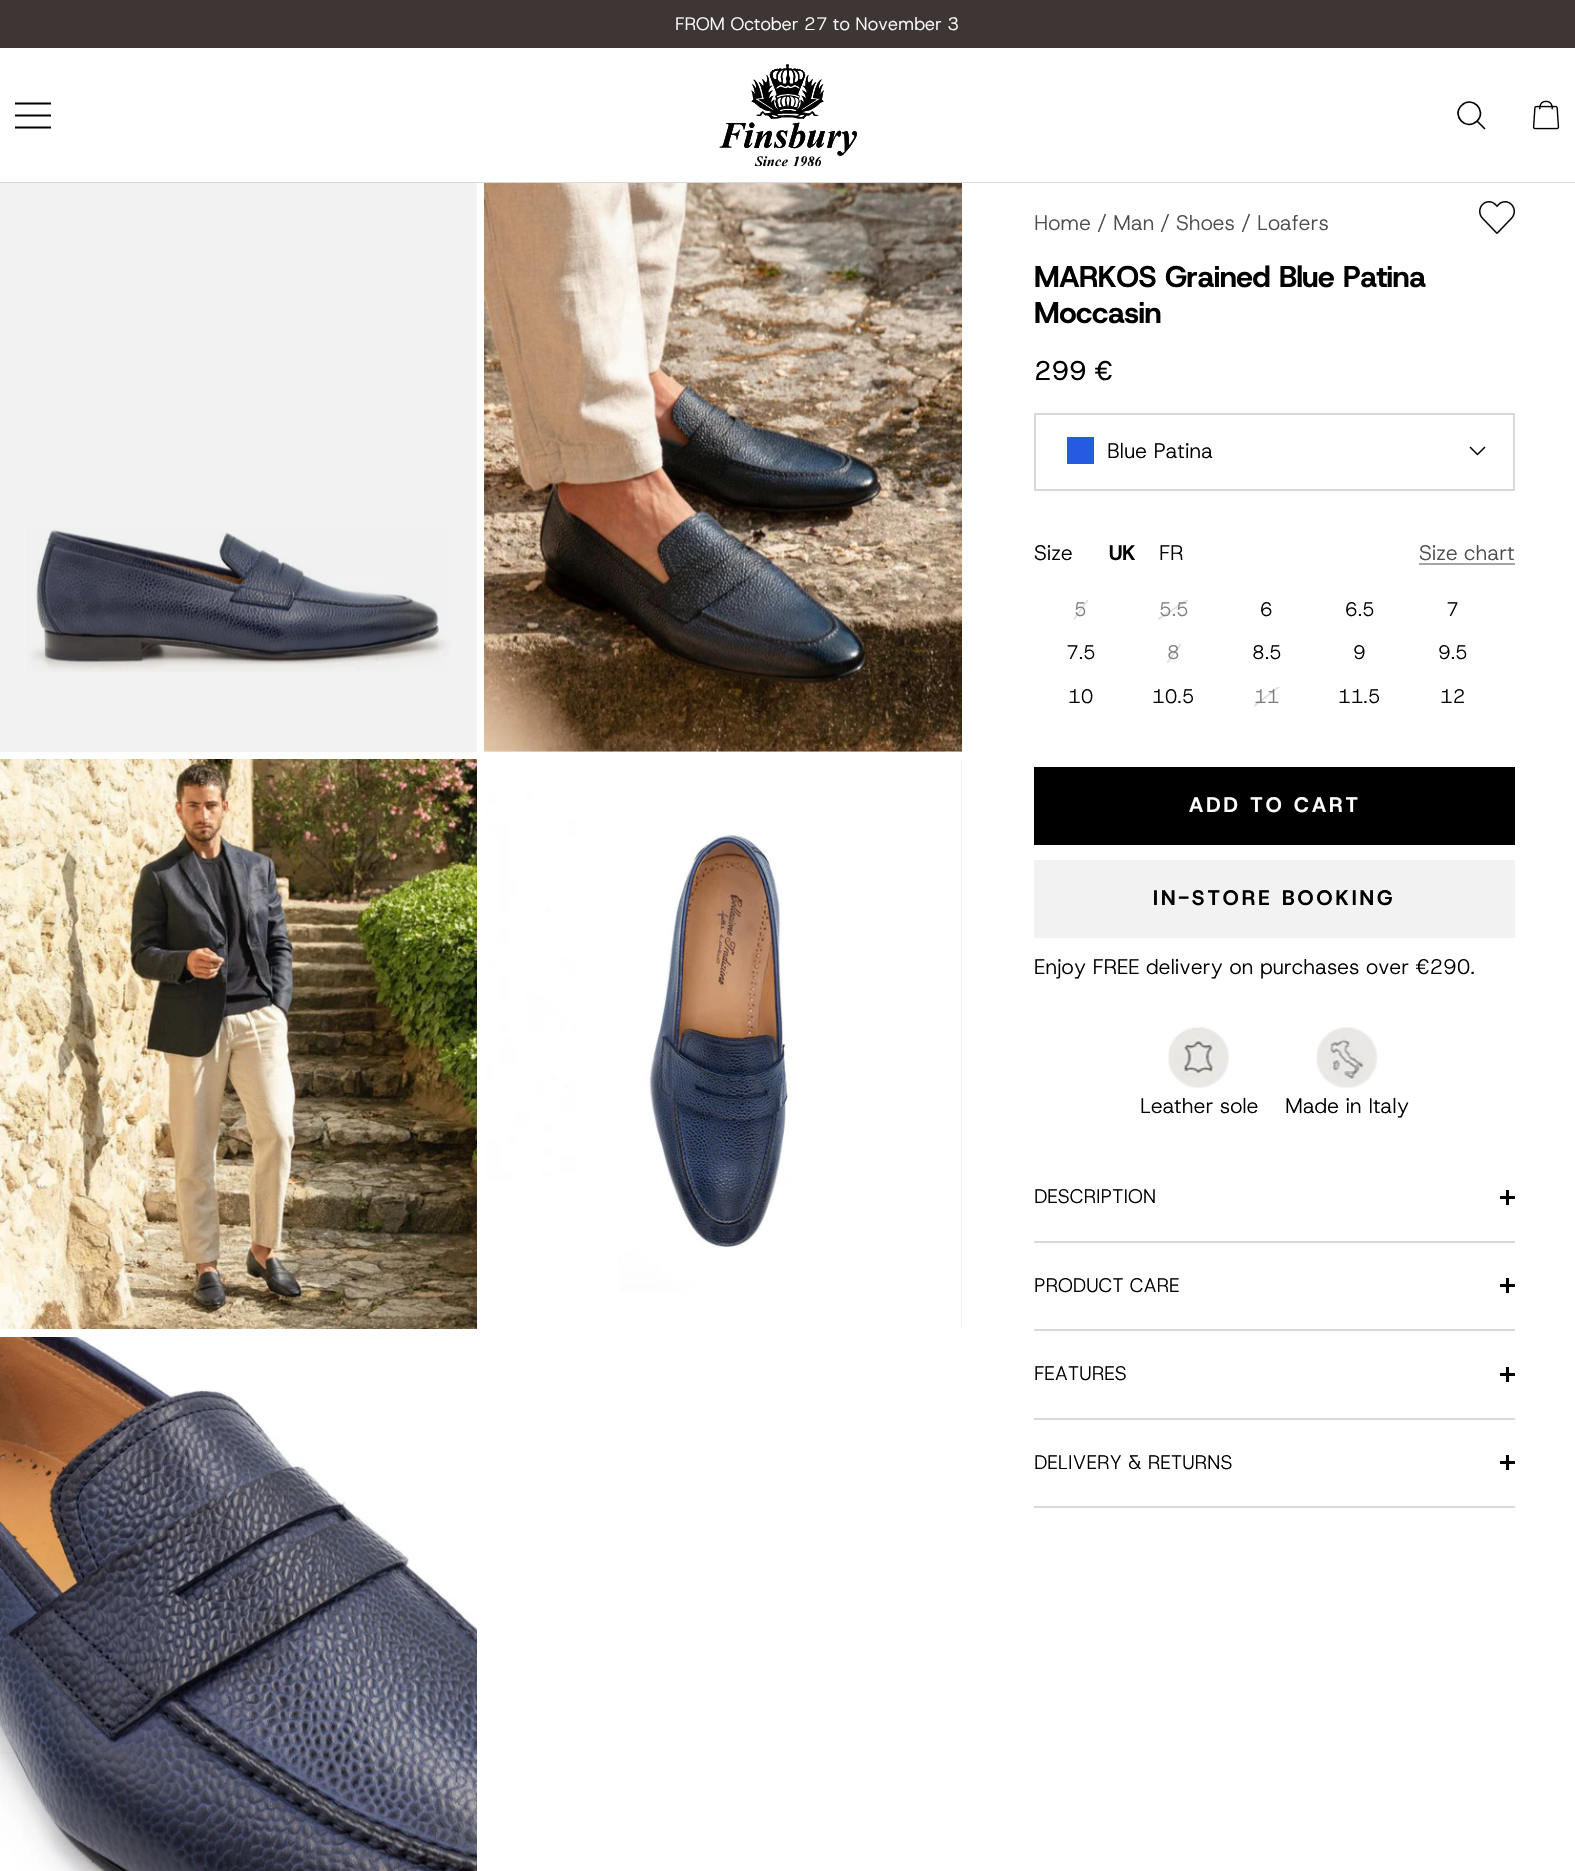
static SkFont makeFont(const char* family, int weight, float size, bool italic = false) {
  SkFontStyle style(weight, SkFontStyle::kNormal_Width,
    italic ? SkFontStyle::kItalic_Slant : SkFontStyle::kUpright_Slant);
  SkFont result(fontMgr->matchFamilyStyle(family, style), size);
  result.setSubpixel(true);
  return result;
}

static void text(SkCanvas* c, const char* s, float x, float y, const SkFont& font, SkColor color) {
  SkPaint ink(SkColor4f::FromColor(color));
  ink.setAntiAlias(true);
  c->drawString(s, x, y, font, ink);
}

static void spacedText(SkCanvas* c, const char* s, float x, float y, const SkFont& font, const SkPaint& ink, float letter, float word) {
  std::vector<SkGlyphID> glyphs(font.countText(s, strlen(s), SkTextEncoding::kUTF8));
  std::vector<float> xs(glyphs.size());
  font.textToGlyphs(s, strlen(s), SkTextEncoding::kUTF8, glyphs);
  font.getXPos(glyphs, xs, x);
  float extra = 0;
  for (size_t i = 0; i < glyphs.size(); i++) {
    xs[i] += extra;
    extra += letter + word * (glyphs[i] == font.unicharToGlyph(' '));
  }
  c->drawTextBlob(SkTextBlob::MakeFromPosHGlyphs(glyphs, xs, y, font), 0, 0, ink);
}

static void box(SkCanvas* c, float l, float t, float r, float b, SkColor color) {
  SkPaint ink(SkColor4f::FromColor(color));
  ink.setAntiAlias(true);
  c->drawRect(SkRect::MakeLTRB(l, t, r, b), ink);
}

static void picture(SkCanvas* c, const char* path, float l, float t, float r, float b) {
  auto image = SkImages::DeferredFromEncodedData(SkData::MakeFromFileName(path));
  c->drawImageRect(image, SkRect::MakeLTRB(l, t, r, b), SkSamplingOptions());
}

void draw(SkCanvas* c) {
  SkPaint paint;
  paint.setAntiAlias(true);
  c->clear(0xffffffff);
  box(c, 0, 0, 1575, 48, 0xff3d3635);
  SkFont face1 = makeFont("Host Grotesk", 300, 18);
  text(c, "FROM October 27 to November 3", 675, 30, face1, 0xffffffff);
  box(c, 0, 182, 1575, 183, 0xffd9d9d9);
  paint.setStyle(SkPaint::kStroke_Style);
  paint.setStrokeWidth(2);
  paint.setColor(0xff000000);
  c->drawPath(SkPathBuilder().moveTo(15, 103.5f).lineTo(51, 103.5f).moveTo(15, 127.5f).lineTo(51, 127.5f).close().moveTo(15, 115.5f).lineTo(51, 115.5f).close().detach(), paint);
  picture(c, "img_01.png", 719, 64, 857, 167);
  paint.setStrokeWidth(1.7f);
  c->drawPath(SkPathBuilder().moveTo(1477, 121).cubicTo(1487.5f, 110.5f, 1472, 95, 1461.5f, 105.5f).cubicTo(1451, 116, 1466.5f, 131.5f, 1477, 121).close().moveTo(1477, 121).lineTo(1485, 129).detach(), paint);
  picture(c, "img_02.png", 1532, 100, 1560, 130);
  box(c, 0, 183, 477, 752, 0xfff2f2f2);
  picture(c, "img_03.png", 27, 528, 450, 672);
  box(c, 485, 751, 962, 752, 0xfff2f2f2);
  picture(c, "img_04.png", 484, 183, 962, 752);
  picture(c, "img_05.png", 0, 759, 477, 1329);
  box(c, 961, 759, 962, 1329, 0xfff2f2f2);
  picture(c, "img_06.png", 485, 759, 961, 1329);
  picture(c, "img_07.png", 0, 1337, 477, 1871);
  SkFont face2 = makeFont("Host Grotesk", 300, 21);
  text(c, "Home", 1034, 230, face2, 0xff4d4d4d);
  text(c, "/", 1097, 230, face2, 0xff4d4d4d);
  text(c, "Man", 1113, 230, face2, 0xff4d4d4d);
  text(c, "/", 1160, 230, face2, 0xff4d4d4d);
  text(c, "Shoes", 1176, 230, face2, 0xff4d4d4d);
  text(c, "/", 1241, 230, face2, 0xff4d4d4d);
  text(c, "Loafers", 1257, 230, face2, 0xff4d4d4d);
  picture(c, "img_08.png", 1479, 201, 1515, 234);
  SkFont face3 = makeFont("Host Grotesk", 700, 30);
  paint.setStyle(SkPaint::kFill_Style);
  spacedText(c, "MARKOS Grained Blue Patina", 1034, 287, face3, paint, -0.45f, 0);
  spacedText(c, "Moccasin", 1034, 323, face3, paint, -0.45f, 0);
  SkFont face4 = makeFont("Host Grotesk", 400, 27);
  text(c, "299 €", 1034, 380, face4, 0xff000000);
  paint.setStyle(SkPaint::kStroke_Style);
  paint.setStrokeWidth(2);
  paint.setColor(0xffd9d9d9);
  c->drawRect(SkRect::MakeLTRB(1035, 414, 1514, 490), paint);
  box(c, 1067, 437, 1094, 464, 0xff265ae0);
  text(c, "Blue Patina", 1107, 458, face2, 0xff000000);
  paint.setStrokeWidth(1.5f);
  paint.setColor(0xff000000);
  c->drawPath(SkPathBuilder().moveTo(1470, 447).lineTo(1477.5f, 454.5f).lineTo(1485, 447).detach(), paint);
  text(c, "Size", 1034, 560, face2, 0xff000000);
  SkFont face5 = makeFont("Host Grotesk", 700, 21);
  text(c, "UK", 1109, 560, face5, 0xff000000);
  text(c, "FR", 1159, 560, face2, 0xff000000);
  paint.setStyle(SkPaint::kFill_Style);
  {
    const SkColor colors[] = {0xffffffff, 0xffd9d9d9, 0xffffffff};
    const float stops[] = {0.43f, 0.5f, 0.57f};
    const SkPoint ends[] = {{1072, 603}, {1090, 616}};
    paint.setShader(SkGradientShader::MakeLinear(ends, colors, stops, 3, SkTileMode::kClamp));
    paint.setAlpha(255);
  }
  c->drawRect(SkRect::MakeLTRB(1074, 600, 1088, 620), paint);
  SkFont face6 = makeFont("Host Grotesk", 300, 19.5f);
  text(c, "5", 1074, 616, face6, 0xff7e7e7e);
  {
    const SkColor colors[] = {0xffffffff, 0xffd9d9d9, 0xffffffff};
    const float stops[] = {0.45f, 0.5f, 0.55f};
    const SkPoint ends[] = {{1164, 596}, {1182, 623}};
    paint.setShader(SkGradientShader::MakeLinear(ends, colors, stops, 3, SkTileMode::kClamp));
    paint.setAlpha(255);
  }
  c->drawRect(SkRect::MakeLTRB(1158, 600, 1188, 620), paint);
  text(c, "5.5", 1159, 616, face6, 0xff7e7e7e);
  text(c, "6", 1260, 616, face6, 0xff000000);
  text(c, "6.5", 1345, 616, face6, 0xff000000);
  text(c, "7", 1446, 616, face6, 0xff000000);
  text(c, "7.5", 1066, 659, face6, 0xff000000);
  {
    const SkColor colors[] = {0xffffffff, 0xffd9d9d9, 0xffffffff};
    const float stops[] = {0.43f, 0.5f, 0.57f};
    const SkPoint ends[] = {{1165, 647}, {1183, 660}};
    paint.setShader(SkGradientShader::MakeLinear(ends, colors, stops, 3, SkTileMode::kClamp));
    paint.setAlpha(255);
  }
  c->drawRect(SkRect::MakeLTRB(1167, 644, 1181, 663), paint);
  text(c, "8", 1167, 659, face6, 0xff7e7e7e);
  text(c, "8.5", 1252, 659, face6, 0xff000000);
  text(c, "9", 1353, 659, face6, 0xff000000);
  text(c, "9.5", 1438, 659, face6, 0xff000000);
  text(c, "10", 1068, 703, face6, 0xff000000);
  text(c, "10.5", 1152, 703, face6, 0xff000000);
  {
    const SkColor colors[] = {0xffffffff, 0xffd9d9d9, 0xffffffff};
    const float stops[] = {0.45f, 0.5f, 0.55f};
    const SkPoint ends[] = {{1257, 684}, {1276, 709}};
    paint.setShader(SkGradientShader::MakeLinear(ends, colors, stops, 3, SkTileMode::kClamp));
    paint.setAlpha(255);
  }
  c->drawRect(SkRect::MakeLTRB(1254, 687, 1280, 707), paint);
  text(c, "11", 1254, 703, face6, 0xff7e7e7e);
  text(c, "11.5", 1338, 703, face6, 0xff000000);
  text(c, "12", 1440, 703, face6, 0xff000000);
  text(c, "Size chart", 1419, 560, face2, 0xff4d4d4d);
  box(c, 1419, 563, 1515, 565, 0xffa6a6a6);
  box(c, 1034, 767, 1515, 845, 0xff000000);
  paint.setShader(nullptr);
  paint.setColor(0xffffffff);
  spacedText(c, "ADD TO CART", 1189, 812, face5, paint, 3, 0);
  box(c, 1034, 860, 1515, 938, 0xfff2f2f2);
  paint.setColor(0xff000000);
  spacedText(c, "IN-STORE BOOKING", 1153, 905, face5, paint, 3, 0);
  text(c, "Enjoy FREE delivery on purchases over €290.", 1034, 974, face2, 0xff000000);
  picture(c, "img_09.png", 1168, 1027, 1229, 1088);
  text(c, "Leather sole", 1140, 1113, face2, 0xff000000);
  picture(c, "img_10.png", 1316, 1027, 1378, 1088);
  text(c, "Made in Italy", 1285, 1113, face2, 0xff000000);
  text(c, "DESCRIPTION", 1034, 1203, face6, 0xff000000);
  box(c, 1506, 1190, 1509, 1205, 0xff000000);
  box(c, 1500, 1196, 1515, 1199, 0xff000000);
  box(c, 1034, 1241, 1515, 1243, 0xffd9d9d9);
  text(c, "PRODUCT CARE", 1034, 1292, face6, 0xff000000);
  box(c, 1506, 1278, 1509, 1293, 0xff000000);
  box(c, 1500, 1284, 1515, 1287, 0xff000000);
  box(c, 1034, 1329, 1515, 1331, 0xffd9d9d9);
  text(c, "FEATURES", 1034, 1380, face6, 0xff000000);
  box(c, 1506, 1367, 1509, 1382, 0xff000000);
  box(c, 1500, 1373, 1515, 1376, 0xff000000);
  box(c, 1034, 1418, 1515, 1420, 0xffd9d9d9);
  box(c, 1034, 1506, 1515, 1508, 0xffd9d9d9);
  text(c, "DELIVERY & RETURNS", 1034, 1469, face6, 0xff000000);
  box(c, 1506, 1455, 1509, 1470, 0xff000000);
  box(c, 1500, 1461, 1515, 1464, 0xff000000);
}
